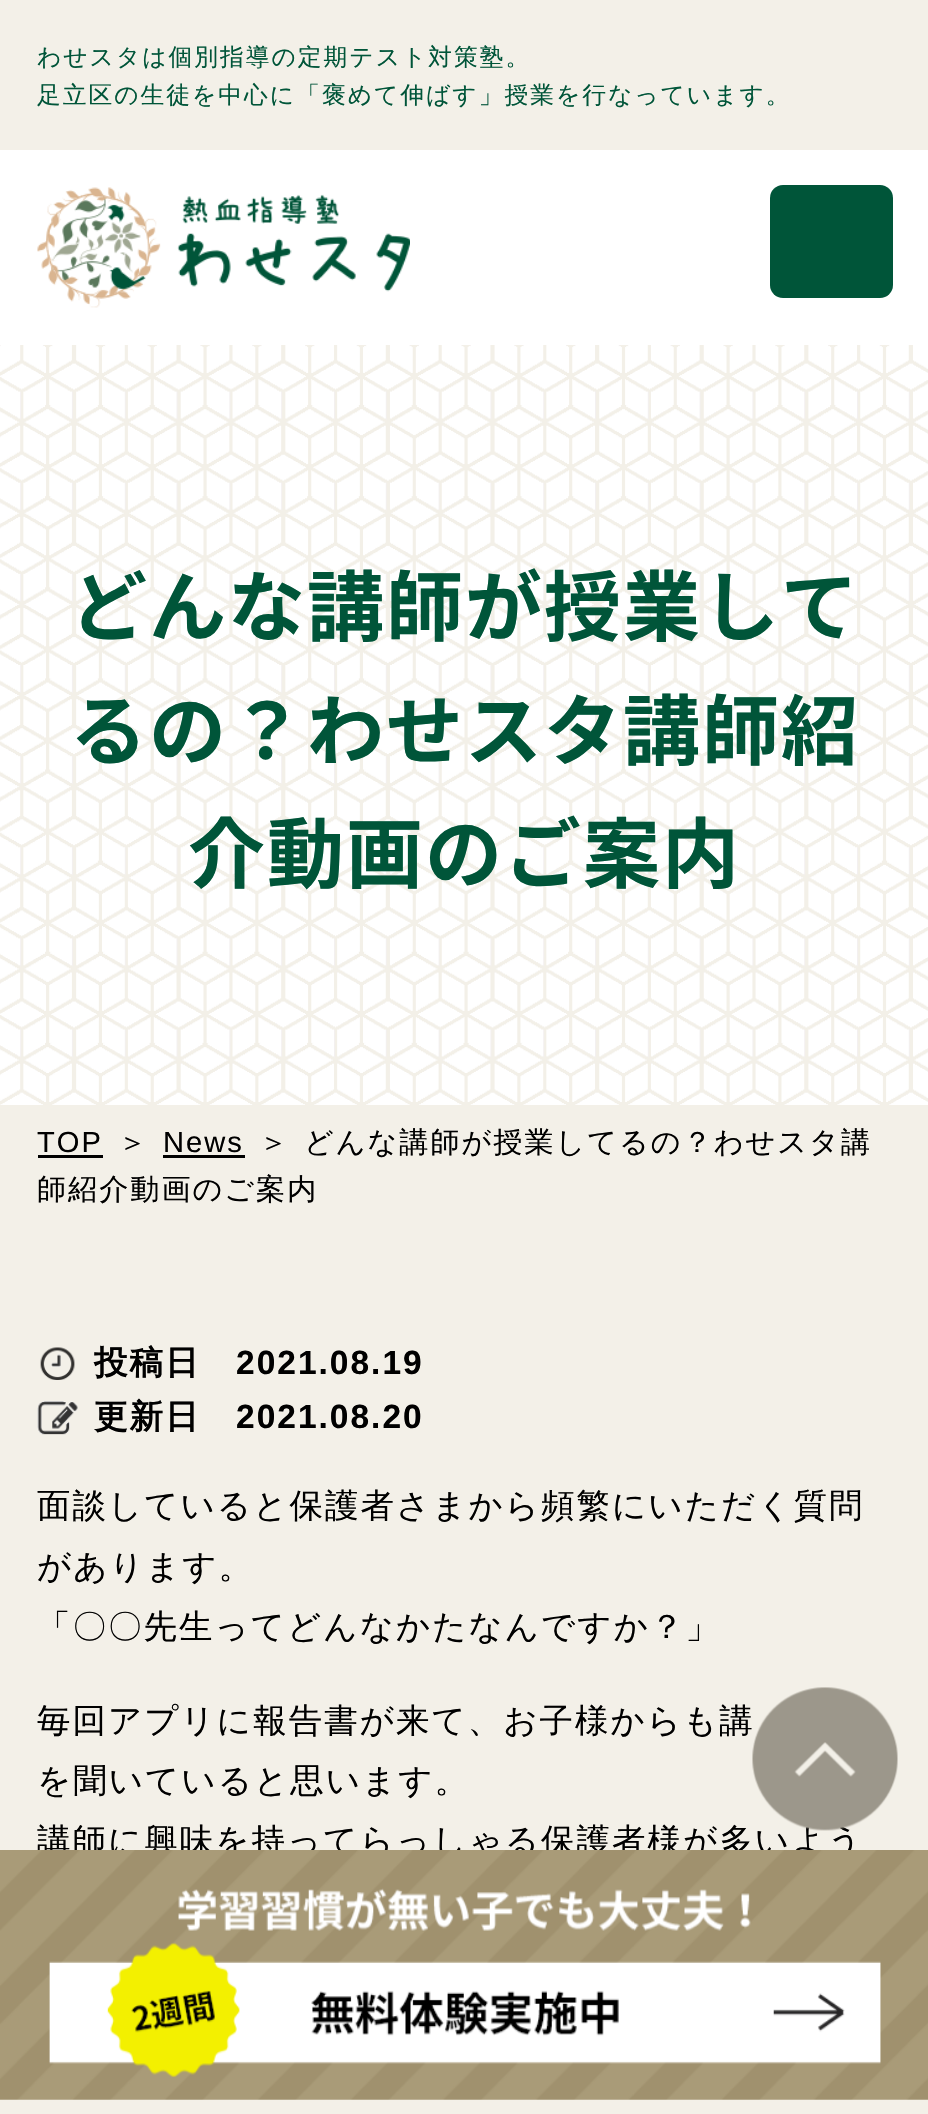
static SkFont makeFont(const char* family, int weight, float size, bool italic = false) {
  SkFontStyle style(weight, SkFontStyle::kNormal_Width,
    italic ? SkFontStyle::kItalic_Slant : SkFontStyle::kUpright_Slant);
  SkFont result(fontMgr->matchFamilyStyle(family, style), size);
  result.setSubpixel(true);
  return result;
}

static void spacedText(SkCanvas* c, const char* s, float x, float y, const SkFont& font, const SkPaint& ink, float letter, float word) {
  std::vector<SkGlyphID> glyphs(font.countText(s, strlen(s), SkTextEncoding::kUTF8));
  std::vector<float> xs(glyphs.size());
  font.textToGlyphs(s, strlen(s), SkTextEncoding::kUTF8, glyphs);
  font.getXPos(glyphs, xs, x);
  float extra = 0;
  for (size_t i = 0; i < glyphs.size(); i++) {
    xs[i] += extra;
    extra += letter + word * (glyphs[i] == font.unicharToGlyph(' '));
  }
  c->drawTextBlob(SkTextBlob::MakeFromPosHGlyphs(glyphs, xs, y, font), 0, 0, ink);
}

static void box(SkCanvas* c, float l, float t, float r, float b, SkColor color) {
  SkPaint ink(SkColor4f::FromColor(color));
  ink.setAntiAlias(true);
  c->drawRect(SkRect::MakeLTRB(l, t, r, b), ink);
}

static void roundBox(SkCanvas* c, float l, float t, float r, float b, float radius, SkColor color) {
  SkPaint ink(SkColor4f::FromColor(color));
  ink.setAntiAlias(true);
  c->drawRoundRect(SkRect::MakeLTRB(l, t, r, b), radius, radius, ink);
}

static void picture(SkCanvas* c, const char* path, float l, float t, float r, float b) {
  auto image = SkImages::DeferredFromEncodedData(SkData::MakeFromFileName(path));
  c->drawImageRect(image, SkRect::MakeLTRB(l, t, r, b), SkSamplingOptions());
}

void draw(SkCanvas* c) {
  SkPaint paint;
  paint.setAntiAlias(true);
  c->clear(0xffffffff);
  box(c, 0, 0, 928, 150, 0xfff3f0e8);
  SkFont face1 = makeFont("WenQuanYi Zen Hei", 500, 23.75f);
  paint.setColor(0xff005539);
  spacedText(c, "わせスタは個別指導の定期テスト対策塾。", 37, 65, face1, paint, 2, 0);
  spacedText(c, "足立区の生徒を中心に「褒めて伸ばす」授業を行なっています。", 37, 103, face1, paint, 2, 0);
  picture(c, "img_01.png", 37, 187, 410, 308);
  roundBox(c, 770, 185, 893, 298, 13, 0xff005539);
  box(c, 0, 1105, 928, 2114, 0xfff3f0e8);
  picture(c, "img_02.png", 0, 345, 928, 1105);
  SkFont face2 = makeFont("Noto Sans JP", 700, 77);
  spacedText(c, "どんな講師が授業して", 70, 635, face2, paint, 2, 0);
  spacedText(c, "るの？わせスタ講師紹", 70, 759, face2, paint, 2, 0);
  spacedText(c, "介動画のご案内", 188, 882, face2, paint, 2, 0);
  SkFont face3 = makeFont("Liberation Sans", 400, 29.1f);
  paint.setColor(0xff000000);
  spacedText(c, "TOP", 37, 1152, face3, paint, 2, 0);
  box(c, 38, 1155, 103, 1158, 0xff000000);
  SkFont face4 = makeFont("WenQuanYi Zen Hei", 500, 29.1f);
  spacedText(c, "＞", 118, 1152, face4, paint, 2, 0);
  spacedText(c, "News", 163, 1152, face3, paint, 2, 0);
  box(c, 163, 1155, 245, 1158, 0xff000000);
  spacedText(c, "＞", 259, 1152, face4, paint, 2, 0);
  spacedText(c, "どんな講師が授業してるの？わせスタ講", 304, 1152, face4, paint, 2, 0);
  spacedText(c, "師紹介動画のご案内", 37, 1199, face4, paint, 2, 0);
  picture(c, "img_03.png", 40, 1347, 75, 1380);
  SkFont face5 = makeFont("WenQuanYi Zen Hei", 700, 33.5f);
  spacedText(c, "投稿日", 94, 1374, face5, paint, 2, 0);
  SkFont face6 = makeFont("Liberation Sans", 700, 33.5f);
  spacedText(c, "2021.08.19", 236, 1374, face6, paint, 2, 0);
  picture(c, "img_04.png", 37, 1401, 78, 1435);
  spacedText(c, "更新日", 94, 1428, face5, paint, 2, 0);
  spacedText(c, "2021.08.20", 236, 1428, face6, paint, 2, 0);
  SkFont face7 = makeFont("WenQuanYi Zen Hei", 500, 33.5f);
  spacedText(c, "面談していると保護者さまから頻繁にいただく質問", 37, 1517, face7, paint, 2, 0);
  spacedText(c, "があります。", 37, 1578, face7, paint, 2, 0);
  spacedText(c, "「〇〇先生ってどんなかたなんですか？」", 37, 1638, face7, paint, 2, 0);
  spacedText(c, "毎回アプリに報告書が来て、お子様からも講", 37, 1732, face7, paint, 2, 0);
  spacedText(c, "を聞いていると思います。", 37, 1792, face7, paint, 2, 0);
  spacedText(c, "講師に興味を持ってらっしゃる保護者様が多いよう", 37, 1852, face7, paint, 2, 0);
  picture(c, "img_05.png", 752, 1687, 898, 1831);
  picture(c, "img_06.png", 0, 1850, 928, 2100);
}
